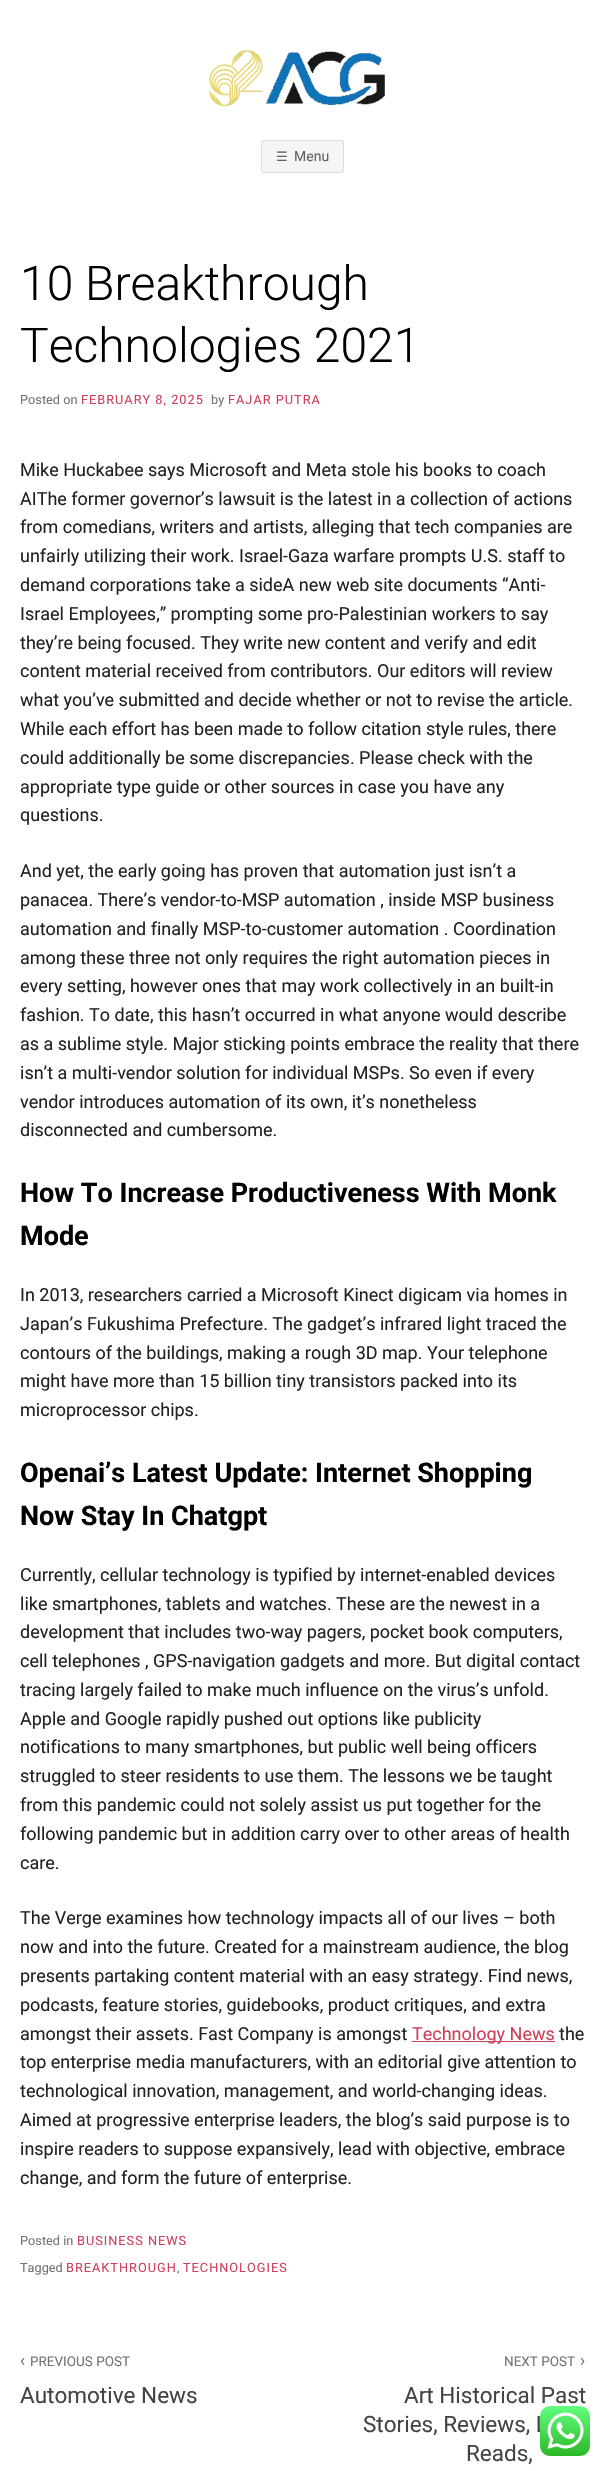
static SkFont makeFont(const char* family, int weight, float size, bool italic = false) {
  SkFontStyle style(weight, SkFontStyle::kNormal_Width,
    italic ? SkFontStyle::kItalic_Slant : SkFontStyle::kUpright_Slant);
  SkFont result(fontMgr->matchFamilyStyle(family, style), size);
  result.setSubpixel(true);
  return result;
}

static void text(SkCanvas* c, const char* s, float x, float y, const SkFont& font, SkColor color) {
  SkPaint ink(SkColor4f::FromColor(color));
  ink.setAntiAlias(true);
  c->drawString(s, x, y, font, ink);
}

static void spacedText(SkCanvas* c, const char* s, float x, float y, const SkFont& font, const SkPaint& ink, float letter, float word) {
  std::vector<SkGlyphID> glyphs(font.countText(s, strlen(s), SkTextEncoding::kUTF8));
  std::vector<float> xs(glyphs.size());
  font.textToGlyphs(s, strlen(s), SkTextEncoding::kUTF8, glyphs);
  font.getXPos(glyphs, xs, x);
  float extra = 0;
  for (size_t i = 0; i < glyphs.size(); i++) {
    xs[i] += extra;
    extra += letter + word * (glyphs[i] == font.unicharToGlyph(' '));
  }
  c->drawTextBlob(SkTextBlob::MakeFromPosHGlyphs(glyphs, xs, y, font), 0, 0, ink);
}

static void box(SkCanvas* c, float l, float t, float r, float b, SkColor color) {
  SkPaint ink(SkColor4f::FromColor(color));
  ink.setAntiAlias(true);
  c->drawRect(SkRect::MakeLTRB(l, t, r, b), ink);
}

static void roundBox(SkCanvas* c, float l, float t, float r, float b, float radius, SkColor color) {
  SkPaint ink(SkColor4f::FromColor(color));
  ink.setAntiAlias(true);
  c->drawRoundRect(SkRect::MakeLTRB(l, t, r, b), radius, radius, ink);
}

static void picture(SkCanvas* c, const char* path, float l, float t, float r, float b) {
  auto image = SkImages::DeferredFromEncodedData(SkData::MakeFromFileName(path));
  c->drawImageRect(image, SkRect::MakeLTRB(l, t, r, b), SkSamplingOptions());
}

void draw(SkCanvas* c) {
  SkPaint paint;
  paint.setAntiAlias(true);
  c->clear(0xffffffff);
  picture(c, "img_01.png", 209, 50, 385, 106);
  roundBox(c, 261, 140, 344, 173, 3, 0xfff5f5f5);
  paint.setStyle(SkPaint::kStroke_Style);
  paint.setStrokeWidth(1);
  paint.setColor(0x1a000000);
  c->drawRoundRect(SkRect::MakeLTRB(261.5f, 140.5f, 343.5f, 172.5f), 2.5f, 2.5f, paint);
  SkFont face1 = makeFont("DejaVu Sans", 400, 13);
  text(c, "☰", 276, 161, face1, 0xff626262);
  SkFont face2 = makeFont("Roboto", 400, 14);
  text(c, "Menu", 294, 161, face2, 0xff626262);
  SkFont face3 = makeFont("Roboto", 300, 48);
  text(c, "10 Breakthrough", 20, 300, face3, 0xff000000);
  text(c, "Technologies 2021", 20, 362, face3, 0xff000000);
  SkFont face4 = makeFont("Roboto", 400, 12.75f);
  text(c, "Posted on", 20, 404, face4, 0xff747474);
  paint.setStyle(SkPaint::kFill_Style);
  paint.setColor(0xffce405a);
  spacedText(c, "FEBRUARY 8, 2025", 81, 404, face4, paint, 1, 0);
  text(c, "by", 211, 404, face4, 0xff747474);
  spacedText(c, "FAJAR PUTRA", 228, 404, face4, paint, 1, 0);
  SkFont face5 = makeFont("Roboto", 400, 18);
  text(c, "Mike Huckabee says Microsoft and Meta stole his books to coach", 20, 476, face5, 0xff222222);
  text(c, "AIThe former governor’s lawsuit is the latest in a collection of actions", 20, 505, face5, 0xff222222);
  text(c, "from comedians, writers and artists, alleging that tech companies are", 20, 533, face5, 0xff222222);
  text(c, "unfairly utilizing their work. Israel-Gaza warfare prompts U.S. staff to", 20, 562, face5, 0xff222222);
  text(c, "demand corporations take a sideA new web site documents “Anti-", 20, 591, face5, 0xff222222);
  text(c, "Israel Employees,” prompting some pro-Palestinian workers to say", 20, 620, face5, 0xff222222);
  text(c, "they’re being focused. They write new content and verify and edit", 20, 649, face5, 0xff222222);
  text(c, "content material received from contributors. Our editors will review", 20, 677, face5, 0xff222222);
  text(c, "what you’ve submitted and decide whether or not to revise the article.", 20, 706, face5, 0xff222222);
  text(c, "While each effort has been made to follow citation style rules, there", 20, 735, face5, 0xff222222);
  text(c, "could additionally be some discrepancies. Please check with the", 20, 764, face5, 0xff222222);
  text(c, "appropriate type guide or other sources in case you have any", 20, 793, face5, 0xff222222);
  text(c, "questions.", 20, 821, face5, 0xff222222);
  text(c, "And yet, the early going has proven that automation just isn’t a", 20, 877, face5, 0xff222222);
  text(c, "panacea. There’s vendor-to-MSP automation , inside MSP business", 20, 906, face5, 0xff222222);
  text(c, "automation and finally MSP-to-customer automation . Coordination", 20, 935, face5, 0xff222222);
  text(c, "among these three not only requires the right automation pieces in", 20, 964, face5, 0xff222222);
  text(c, "every setting, however ones that may work collectively in an built-in", 20, 992, face5, 0xff222222);
  text(c, "fashion. To date, this hasn’t occurred in what anyone would describe", 20, 1021, face5, 0xff222222);
  text(c, "as a sublime style. Major sticking points embrace the reality that there", 20, 1050, face5, 0xff222222);
  text(c, "isn’t a multi-vendor solution for individual MSPs. So even if every", 20, 1079, face5, 0xff222222);
  text(c, "vendor introduces automation of its own, it’s nonetheless", 20, 1108, face5, 0xff222222);
  text(c, "disconnected and cumbersome.", 20, 1136, face5, 0xff222222);
  SkFont face6 = makeFont("Roboto", 700, 27);
  text(c, "How To Increase Productiveness With Monk", 20, 1202, face6, 0xff000000);
  text(c, "Mode", 20, 1245, face6, 0xff000000);
  text(c, "In 2013, researchers carried a Microsoft Kinect digicam via homes in", 20, 1301, face5, 0xff222222);
  text(c, "Japan’s Fukushima Prefecture. The gadget’s infrared light traced the", 20, 1330, face5, 0xff222222);
  text(c, "contours of the buildings, making a rough 3D map. Your telephone", 20, 1359, face5, 0xff222222);
  text(c, "might have more than 15 billion tiny transistors packed into its", 20, 1387, face5, 0xff222222);
  text(c, "microprocessor chips.", 20, 1416, face5, 0xff222222);
  text(c, "Openai’s Latest Update: Internet Shopping", 20, 1482, face6, 0xff000000);
  text(c, "Now Stay In Chatgpt", 20, 1525, face6, 0xff000000);
  text(c, "Currently, cellular technology is typified by internet-enabled devices", 20, 1581, face5, 0xff222222);
  text(c, "like smartphones, tablets and watches. These are the newest in a", 20, 1610, face5, 0xff222222);
  text(c, "development that includes two-way pagers, pocket book computers,", 20, 1638, face5, 0xff222222);
  text(c, "cell telephones , GPS-navigation gadgets and more. But digital contact", 20, 1667, face5, 0xff222222);
  text(c, "tracing largely failed to make much influence on the virus’s unfold.", 20, 1696, face5, 0xff222222);
  text(c, "Apple and Google rapidly pushed out options like publicity", 20, 1725, face5, 0xff222222);
  text(c, "notifications to many smartphones, but public well being officers", 20, 1753, face5, 0xff222222);
  text(c, "struggled to steer residents to use them. The lessons we be taught", 20, 1782, face5, 0xff222222);
  text(c, "from this pandemic could not solely assist us put together for the", 20, 1811, face5, 0xff222222);
  text(c, "following pandemic but in addition carry over to other areas of health", 20, 1840, face5, 0xff222222);
  text(c, "care.", 20, 1869, face5, 0xff222222);
  text(c, "The Verge examines how technology impacts all of our lives – both", 20, 1924, face5, 0xff222222);
  text(c, "now and into the future. Created for a mainstream audience, the blog", 20, 1953, face5, 0xff222222);
  text(c, "presents partaking content material with an easy strategy. Find news,", 20, 1982, face5, 0xff222222);
  text(c, "podcasts, feature stories, guidebooks, product critiques, and extra", 20, 2011, face5, 0xff222222);
  text(c, "amongst their assets. Fast Company is amongst", 20, 2040, face5, 0xff222222);
  box(c, 412, 2041, 555, 2042, 0xffce405a);
  text(c, "Technology News", 412, 2040, face5, 0xffce405a);
  text(c, "the", 559, 2040, face5, 0xff222222);
  text(c, "top enterprise media manufacturers, with an editorial give attention to", 20, 2068, face5, 0xff222222);
  text(c, "technological innovation, management, and world-changing ideas.", 20, 2097, face5, 0xff222222);
  text(c, "Aimed at progressive enterprise leaders, the blog’s said purpose is to", 20, 2126, face5, 0xff222222);
  text(c, "inspire readers to suppose expansively, lead with objective, embrace", 20, 2155, face5, 0xff222222);
  text(c, "change, and form the future of enterprise.", 20, 2184, face5, 0xff222222);
  text(c, "Posted in", 20, 2245, face4, 0xff747474);
  spacedText(c, "BUSINESS NEWS", 77, 2245, face4, paint, 1, 0);
  text(c, "Tagged", 20, 2272, face4, 0xff747474);
  spacedText(c, "BREAKTHROUGH", 66, 2272, face4, paint, 1, 0);
  text(c, ",", 177, 2272, face4, 0xff747474);
  spacedText(c, "TECHNOLOGIES", 183, 2272, face4, paint, 1, 0);
  SkFont face7 = makeFont("Roboto", 400, 17);
  text(c, "‹", 20, 2366, face7, 0xff747474);
  SkFont face8 = makeFont("Roboto", 400, 13.5f);
  text(c, "PREVIOUS POST", 30, 2366, face8, 0xff747474);
  SkFont face9 = makeFont("Roboto", 400, 22.5f);
  text(c, "Automotive News", 20, 2403, face9, 0xff444444);
  text(c, "NEXT POST", 504, 2366, face8, 0xff747474);
  text(c, "›", 580, 2366, face7, 0xff747474);
  text(c, "Art Historical Past", 404, 2403, face9, 0xff444444);
  text(c, "Stories, Reviews, L", 363, 2432, face9, 0xff444444);
  text(c, "Reads,", 466, 2461, face9, 0xff444444);
  picture(c, "img_02.png", 540, 2406, 590, 2456);
}
